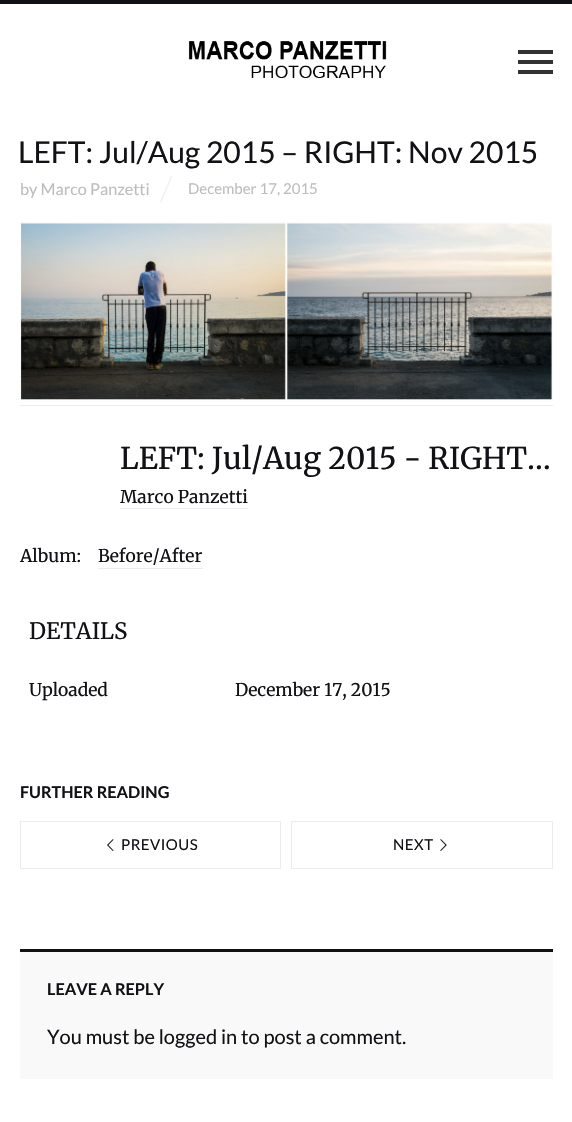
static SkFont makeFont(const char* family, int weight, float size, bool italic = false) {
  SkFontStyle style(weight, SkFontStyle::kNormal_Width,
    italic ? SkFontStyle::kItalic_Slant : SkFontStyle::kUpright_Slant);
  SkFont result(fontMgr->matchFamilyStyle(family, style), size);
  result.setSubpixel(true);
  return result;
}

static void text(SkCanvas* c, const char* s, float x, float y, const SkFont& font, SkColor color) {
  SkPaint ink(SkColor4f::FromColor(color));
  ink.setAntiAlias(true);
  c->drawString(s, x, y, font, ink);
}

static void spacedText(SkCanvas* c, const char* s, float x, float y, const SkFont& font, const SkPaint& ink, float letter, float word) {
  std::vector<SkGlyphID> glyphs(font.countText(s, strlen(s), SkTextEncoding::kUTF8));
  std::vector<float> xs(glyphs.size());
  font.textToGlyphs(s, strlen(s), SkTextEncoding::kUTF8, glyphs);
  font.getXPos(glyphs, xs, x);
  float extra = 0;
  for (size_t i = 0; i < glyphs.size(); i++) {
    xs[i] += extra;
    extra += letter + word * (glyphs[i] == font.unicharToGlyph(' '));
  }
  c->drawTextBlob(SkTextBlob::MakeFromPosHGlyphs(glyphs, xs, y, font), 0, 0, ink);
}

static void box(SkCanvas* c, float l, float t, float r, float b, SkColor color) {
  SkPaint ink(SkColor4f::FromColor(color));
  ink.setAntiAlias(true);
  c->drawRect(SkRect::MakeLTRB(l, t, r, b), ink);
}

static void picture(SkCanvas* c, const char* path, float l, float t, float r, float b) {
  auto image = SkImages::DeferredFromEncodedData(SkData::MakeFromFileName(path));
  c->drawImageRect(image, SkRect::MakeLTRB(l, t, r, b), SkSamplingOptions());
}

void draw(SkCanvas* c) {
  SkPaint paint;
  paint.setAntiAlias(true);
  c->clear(0xffffffff);
  box(c, 0, 0, 572, 4, 0xff111116);
  picture(c, "img_01.png", 188, 41, 387, 78);
  box(c, 518, 60, 553, 64, 0xff333333);
  box(c, 518, 50, 553, 54, 0xff333333);
  box(c, 518, 70, 553, 74, 0xff333333);
  SkFont face1 = makeFont("Lato", 400, 30);
  text(c, "LEFT: Jul/Aug 2015 – RIGHT: Nov 2015", 18, 163, face1, 0xff111116);
  SkFont face2 = makeFont("Lato", 400, 16.25f);
  text(c, "by Marco Panzetti", 20, 195, face2, 0xffbdbdbd);
  picture(c, "img_02.png", 160, 176, 172, 203);
  SkFont face3 = makeFont("Lato", 400, 15);
  text(c, "December 17, 2015", 188, 194, face3, 0xffbdbdbd);
  picture(c, "img_03.png", 20, 222, 553, 400);
  box(c, 20, 405, 553, 406, 0xffebebeb);
  SkFont face4 = makeFont("Merriweather", 300, 30);
  text(c, "LEFT: Jul/Aug 2015 - RIGHT…", 120, 469, face4, 0xff111116);
  SkFont face5 = makeFont("Merriweather", 300, 17.5f);
  text(c, "Marco Panzetti", 120, 503, face5, 0xff111116);
  box(c, 120, 508, 248, 509, 0xffebebeb);
  text(c, "Album:", 20, 562, face5, 0xff111116);
  text(c, "Before/After", 98, 562, face5, 0xff111116);
  box(c, 98, 568, 203, 569, 0xffebebeb);
  SkFont face6 = makeFont("Merriweather", 300, 22.5f);
  text(c, "DETAILS", 29, 639, face6, 0xff111116);
  text(c, "Uploaded", 29, 696, face5, 0xff111116);
  text(c, "December 17, 2015", 235, 696, face5, 0xff111116);
  SkFont face7 = makeFont("Lato", 700, 16.25f);
  text(c, "FURTHER READING", 20, 798, face7, 0xff111116);
  paint.setStyle(SkPaint::kStroke_Style);
  paint.setStrokeWidth(1);
  paint.setColor(0xffebebeb);
  c->drawRect(SkRect::MakeLTRB(20.5f, 821.5f, 280.5f, 868.5f), paint);
  picture(c, "img_04.png", 107, 839, 114, 851);
  paint.setStyle(SkPaint::kFill_Style);
  paint.setColor(0xff111116);
  spacedText(c, "PREVIOUS", 121, 850, face3, paint, 0.5f, 0);
  paint.setStyle(SkPaint::kStroke_Style);
  paint.setColor(0xffebebeb);
  c->drawRect(SkRect::MakeLTRB(291.5f, 821.5f, 552.5f, 868.5f), paint);
  paint.setStyle(SkPaint::kFill_Style);
  paint.setColor(0xff111116);
  spacedText(c, "NEXT", 393, 850, face3, paint, 0.5f, 0);
  picture(c, "img_05.png", 440, 839, 447, 851);
  box(c, 20, 952, 553, 1079, 0xfff9f9f9);
  box(c, 20, 949, 553, 952, 0xff111116);
  text(c, "LEAVE A REPLY", 47, 995, face7, 0xff111116);
  SkFont face8 = makeFont("Lato", 400, 20);
  text(c, "You must be logged in to post a comment.", 47, 1044, face8, 0xff111116);
}
